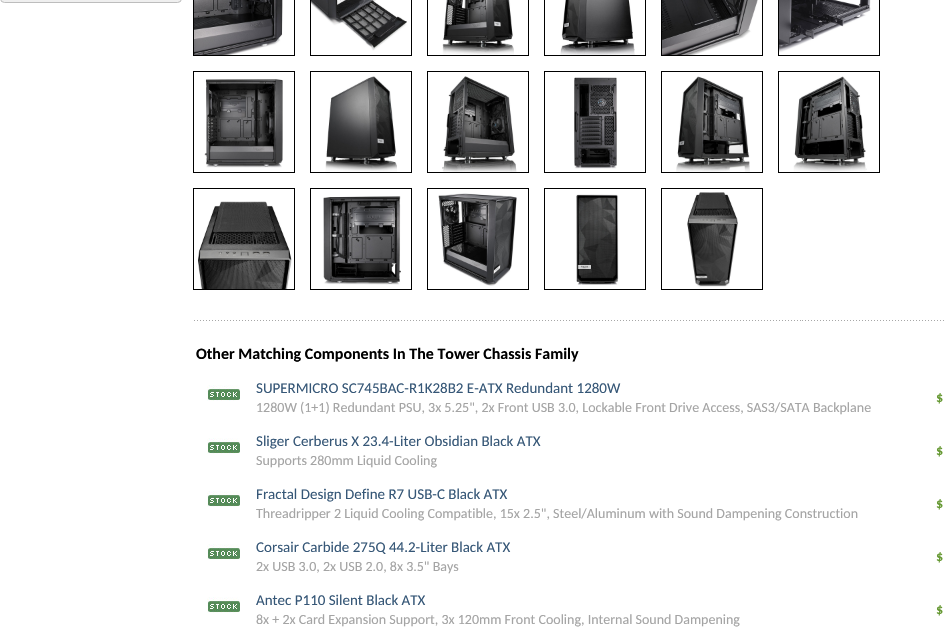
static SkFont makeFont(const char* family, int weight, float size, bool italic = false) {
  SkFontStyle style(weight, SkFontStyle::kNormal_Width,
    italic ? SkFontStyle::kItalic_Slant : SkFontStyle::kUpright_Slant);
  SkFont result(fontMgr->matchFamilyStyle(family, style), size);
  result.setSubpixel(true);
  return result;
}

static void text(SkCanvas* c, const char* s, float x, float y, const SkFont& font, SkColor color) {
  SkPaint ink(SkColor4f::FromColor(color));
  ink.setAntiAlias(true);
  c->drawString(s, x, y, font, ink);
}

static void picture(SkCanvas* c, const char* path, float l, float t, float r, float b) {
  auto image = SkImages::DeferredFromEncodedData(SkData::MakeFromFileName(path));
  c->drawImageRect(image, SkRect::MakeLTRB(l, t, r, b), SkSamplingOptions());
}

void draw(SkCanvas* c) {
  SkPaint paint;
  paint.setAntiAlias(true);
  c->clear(0xffffffff);
  paint.setColor(0xffefefef);
  c->drawRoundRect(SkRect::MakeLTRB(0.5f, -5.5f, 181.5f, 2.5f), 4.5f, 4.5f, paint);
  paint.setStyle(SkPaint::kStroke_Style);
  paint.setStrokeWidth(1);
  paint.setColor(0xffbdbdbd);
  c->drawRoundRect(SkRect::MakeLTRB(0.5f, -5.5f, 181.5f, 2.5f), 4.5f, 4.5f, paint);
  picture(c, "img_01.png", 194, 0, 283, 55);
  paint.setColor(0xff000000);
  c->drawRect(SkRect::MakeLTRB(193.5f, -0.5f, 294.5f, 55.5f), paint);
  picture(c, "img_02.png", 311, 0, 407, 51);
  c->drawRect(SkRect::MakeLTRB(310.5f, -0.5f, 411.5f, 55.5f), paint);
  picture(c, "img_03.png", 442, 0, 514, 55);
  c->drawRect(SkRect::MakeLTRB(427.5f, -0.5f, 528.5f, 55.5f), paint);
  picture(c, "img_04.png", 560, 0, 635, 55);
  c->drawRect(SkRect::MakeLTRB(544.5f, -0.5f, 645.5f, 55.5f), paint);
  picture(c, "img_05.png", 662, 0, 758, 55);
  c->drawRect(SkRect::MakeLTRB(661.5f, -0.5f, 762.5f, 55.5f), paint);
  picture(c, "img_06.png", 779, 0, 871, 53);
  c->drawRect(SkRect::MakeLTRB(778.5f, -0.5f, 879.5f, 55.5f), paint);
  picture(c, "img_07.png", 204, 79, 283, 168);
  c->drawRect(SkRect::MakeLTRB(193.5f, 71.5f, 294.5f, 172.5f), paint);
  picture(c, "img_08.png", 325, 76, 397, 172);
  c->drawRect(SkRect::MakeLTRB(310.5f, 71.5f, 411.5f, 172.5f), paint);
  picture(c, "img_09.png", 442, 76, 517, 172);
  c->drawRect(SkRect::MakeLTRB(427.5f, 71.5f, 528.5f, 172.5f), paint);
  picture(c, "img_10.png", 574, 77, 617, 169);
  c->drawRect(SkRect::MakeLTRB(544.5f, 71.5f, 645.5f, 172.5f), paint);
  picture(c, "img_11.png", 676, 76, 750, 172);
  c->drawRect(SkRect::MakeLTRB(661.5f, 71.5f, 762.5f, 172.5f), paint);
  picture(c, "img_12.png", 793, 76, 867, 172);
  c->drawRect(SkRect::MakeLTRB(778.5f, 71.5f, 879.5f, 172.5f), paint);
  picture(c, "img_13.png", 198, 201, 292, 289);
  c->drawRect(SkRect::MakeLTRB(193.5f, 188.5f, 294.5f, 289.5f), paint);
  picture(c, "img_14.png", 323, 196, 401, 285);
  c->drawRect(SkRect::MakeLTRB(310.5f, 188.5f, 411.5f, 289.5f), paint);
  picture(c, "img_15.png", 438, 193, 517, 286);
  c->drawRect(SkRect::MakeLTRB(427.5f, 188.5f, 528.5f, 289.5f), paint);
  picture(c, "img_16.png", 576, 194, 619, 285);
  c->drawRect(SkRect::MakeLTRB(544.5f, 188.5f, 645.5f, 289.5f), paint);
  picture(c, "img_17.png", 687, 192, 738, 287);
  c->drawRect(SkRect::MakeLTRB(661.5f, 188.5f, 762.5f, 289.5f), paint);
  picture(c, "img_18.png", 194, 320, 944, 321);
  SkFont face1 = makeFont("Carlito", 700, 16);
  text(c, "Other Matching Components In The Tower Chassis Family", 196, 359, face1, 0xff000000);
  picture(c, "img_19.png", 207, 385, 240, 401);
  SkFont face2 = makeFont("Carlito", 400, 15);
  text(c, "SUPERMICRO SC745BAC-R1K28B2 E-ATX Redundant 1280W", 256, 393, face2, 0xff365777);
  SkFont face3 = makeFont("Carlito", 400, 14);
  text(c, "1280W (1+1) Redundant PSU, 3x 5.25\", 2x Front USB 3.0, Lockable Front Drive Access, SAS3/SATA Backplane", 256, 412, face3, 0xffa4a4a4);
  SkFont face4 = makeFont("Carlito", 700, 14);
  text(c, "$", 936, 402, face4, 0xff669933);
  picture(c, "img_19.png", 207, 438, 240, 454);
  text(c, "Sliger Cerberus X 23.4-Liter Obsidian Black ATX", 256, 446, face2, 0xff365777);
  text(c, "Supports 280mm Liquid Cooling", 256, 465, face3, 0xffa4a4a4);
  text(c, "$", 936, 455, face4, 0xff669933);
  picture(c, "img_19.png", 207, 491, 240, 507);
  text(c, "Fractal Design Define R7 USB-C Black ATX", 256, 499, face2, 0xff365777);
  text(c, "Threadripper 2 Liquid Cooling Compatible, 15x 2.5\", Steel/Aluminum with Sound Dampening Construction", 256, 518, face3, 0xffa4a4a4);
  text(c, "$", 936, 508, face4, 0xff669933);
  picture(c, "img_19.png", 207, 544, 240, 560);
  text(c, "Corsair Carbide 275Q 44.2-Liter Black ATX", 256, 552, face2, 0xff365777);
  text(c, "2x USB 3.0, 2x USB 2.0, 8x 3.5\" Bays", 256, 571, face3, 0xffa4a4a4);
  text(c, "$", 936, 561, face4, 0xff669933);
  picture(c, "img_19.png", 207, 597, 240, 613);
  text(c, "Antec P110 Silent Black ATX", 256, 605, face2, 0xff365777);
  text(c, "8x + 2x Card Expansion Support, 3x 120mm Front Cooling, Internal Sound Dampening", 256, 624, face3, 0xffa4a4a4);
  text(c, "$", 936, 614, face4, 0xff669933);
}
